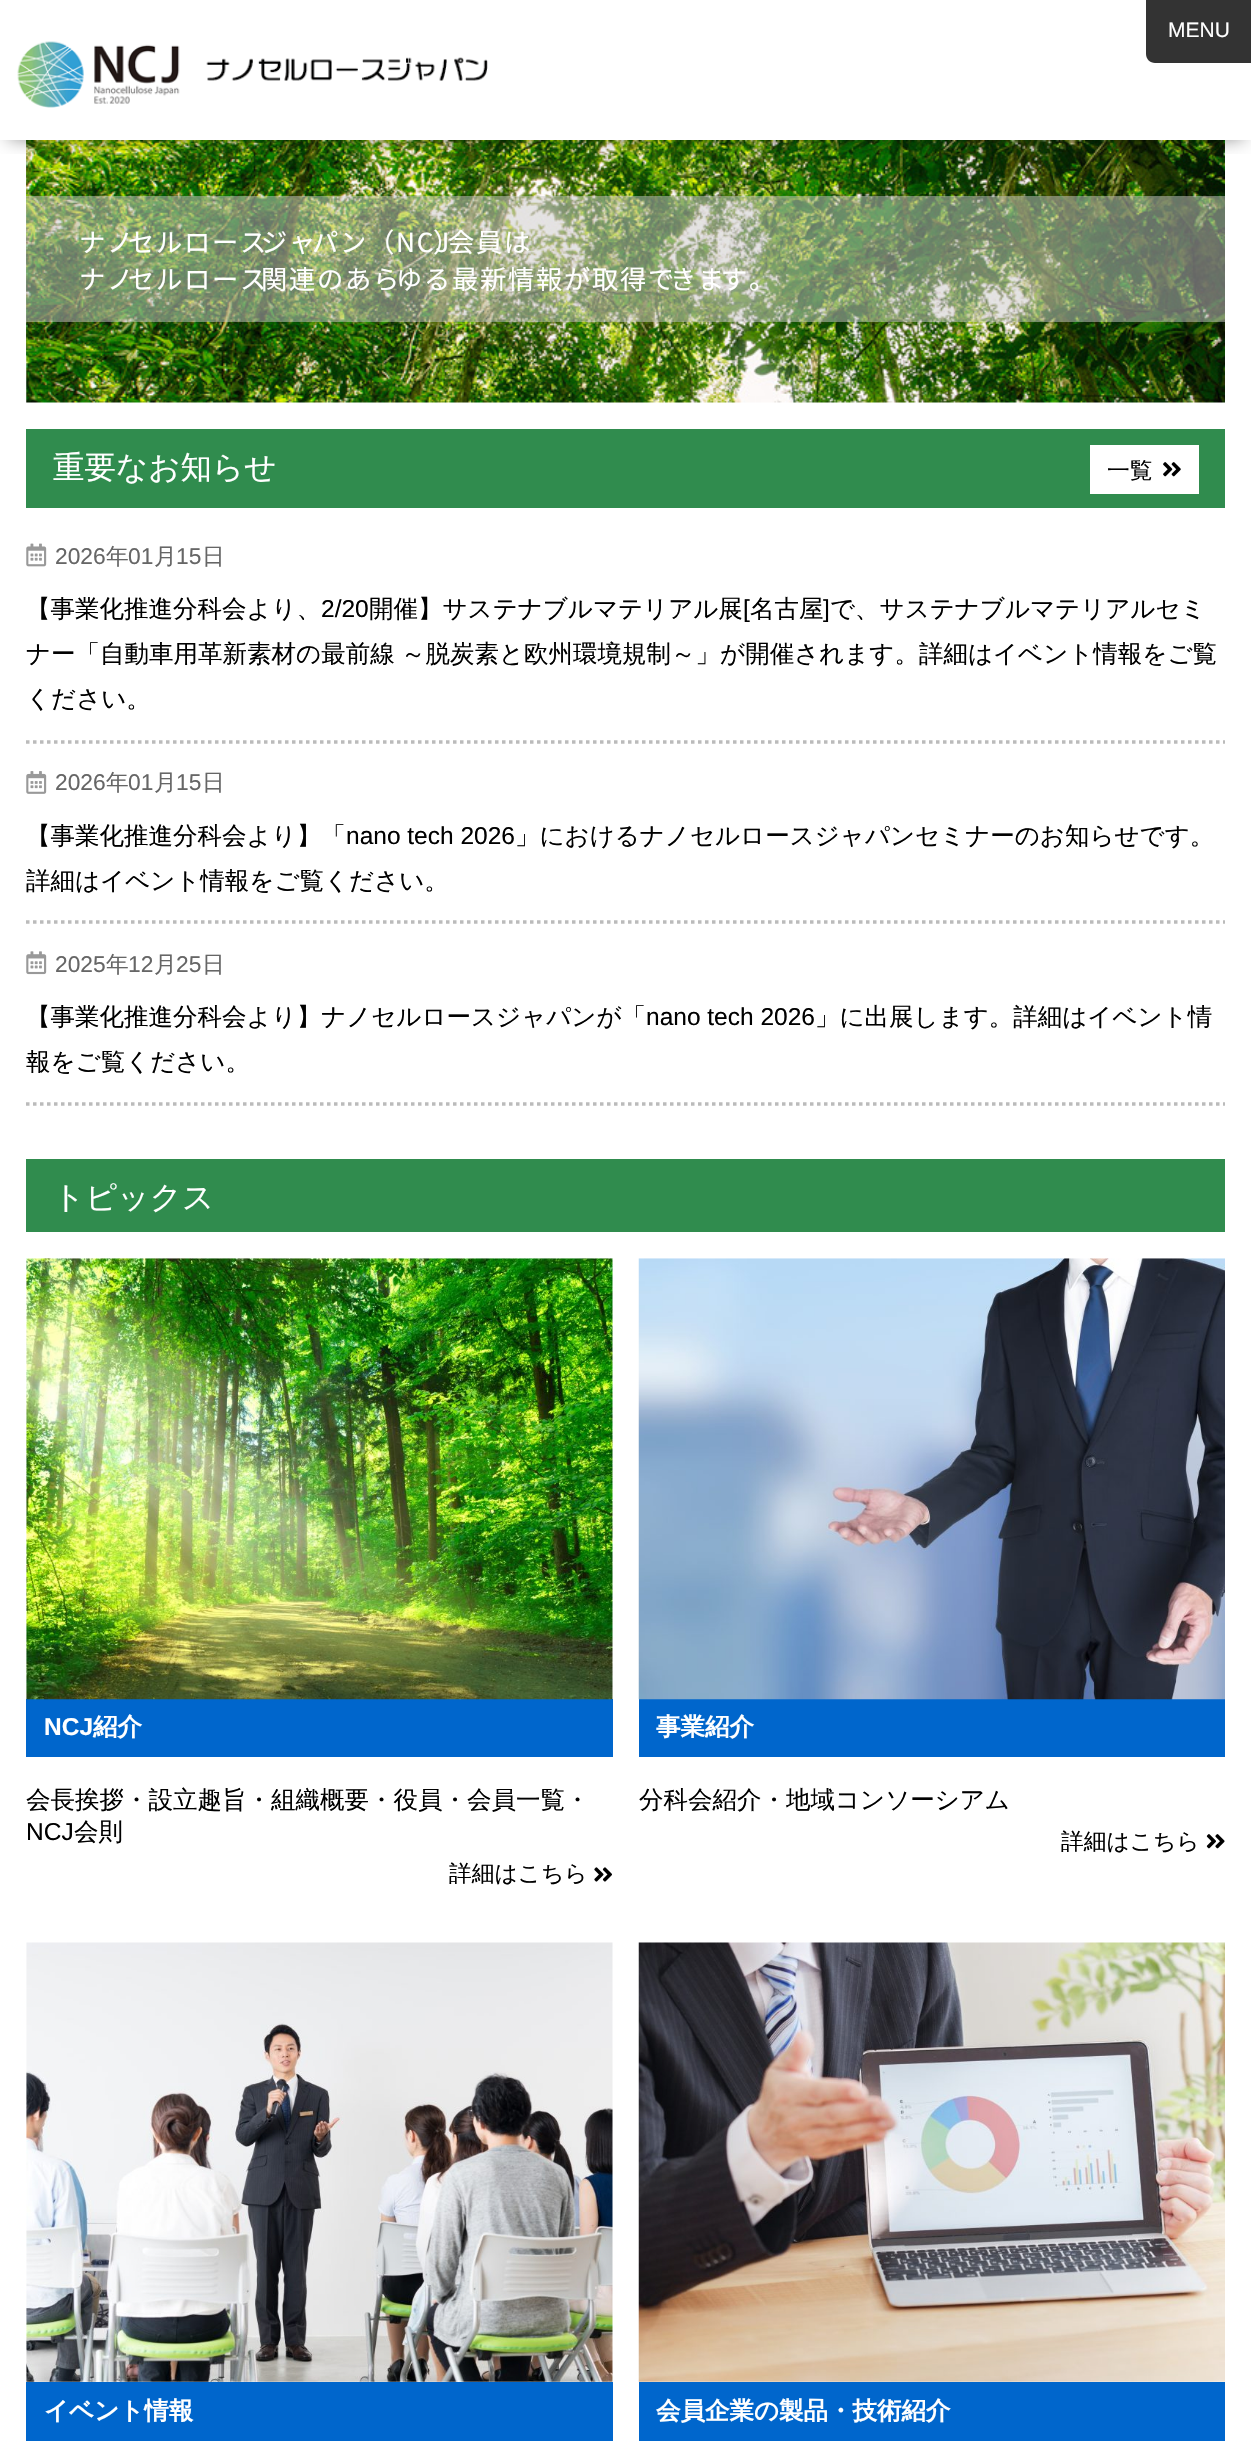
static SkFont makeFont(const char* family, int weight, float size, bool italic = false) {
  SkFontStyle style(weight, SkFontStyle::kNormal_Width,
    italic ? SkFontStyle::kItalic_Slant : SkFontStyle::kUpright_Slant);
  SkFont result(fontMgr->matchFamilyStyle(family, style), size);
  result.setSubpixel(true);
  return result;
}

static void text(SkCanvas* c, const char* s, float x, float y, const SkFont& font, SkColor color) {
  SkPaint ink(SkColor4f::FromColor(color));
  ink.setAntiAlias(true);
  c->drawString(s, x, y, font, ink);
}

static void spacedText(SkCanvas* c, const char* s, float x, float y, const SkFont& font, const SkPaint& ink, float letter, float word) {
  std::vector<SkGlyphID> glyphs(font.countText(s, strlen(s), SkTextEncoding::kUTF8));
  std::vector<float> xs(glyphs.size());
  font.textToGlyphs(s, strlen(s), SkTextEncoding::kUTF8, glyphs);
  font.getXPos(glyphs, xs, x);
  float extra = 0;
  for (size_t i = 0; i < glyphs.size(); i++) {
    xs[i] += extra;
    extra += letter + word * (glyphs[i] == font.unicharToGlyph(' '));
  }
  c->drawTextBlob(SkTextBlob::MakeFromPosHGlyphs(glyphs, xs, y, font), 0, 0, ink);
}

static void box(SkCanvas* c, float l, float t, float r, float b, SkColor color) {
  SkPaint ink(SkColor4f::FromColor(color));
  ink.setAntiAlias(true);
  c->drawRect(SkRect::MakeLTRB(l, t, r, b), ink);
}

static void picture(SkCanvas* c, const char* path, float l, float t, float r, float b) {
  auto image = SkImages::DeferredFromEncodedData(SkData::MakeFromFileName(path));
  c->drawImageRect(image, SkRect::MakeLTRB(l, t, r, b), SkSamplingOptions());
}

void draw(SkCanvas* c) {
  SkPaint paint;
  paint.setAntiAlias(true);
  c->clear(0xffffffff);
  picture(c, "img_02.png", 26, 140, 27, 356);
  picture(c, "img_03.png", 26, 140, 1225, 403);
  c->save();
  c->clipRect(SkRect::MakeLTRB(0, 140, 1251, 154));
  paint.setColor(0x80000000);
  paint.setMaskFilter(SkMaskFilter::MakeBlur(kNormal_SkBlurStyle, 9));
  c->drawRect(SkRect::MakeLTRB(9, 16, 1243, 138), paint);
  paint.setMaskFilter(nullptr);
  c->restore();
  picture(c, "img_01.png", 17, 41, 488, 108);
  paint.setColor(0xff333333);
  c->drawPath(SkPathBuilder().moveTo(1146, 0).lineTo(1251, 0).lineTo(1251, 63).lineTo(1155, 63).cubicTo(1150, 63, 1146, 59, 1146, 54).close().detach(), paint);
  SkFont face1 = makeFont("Liberation Sans", 400, 21);
  text(c, "MENU", 1168, 37, face1, 0xffffffff);
  box(c, 26, 196, 1225, 322, 0x80cccccc);
  SkFont face2 = makeFont("Noto Sans JP", 400, 26.25f);
  paint.setColor(0xffffffff);
  spacedText(c, "ナノ", 79, 252, face2, paint, 1.75f, 0);
  spacedText(c, "セルロース", 128, 252, face2, paint, 1.75f, 0);
  spacedText(c, "ジャ", 261, 252, face2, paint, 1.75f, 0);
  spacedText(c, "パン（NCJ", 312, 252, face2, paint, 1.75f, 0);
  spacedText(c, "）", 433, 252, face2, paint, 1.75f, 0);
  spacedText(c, "会員は", 448, 252, face2, paint, 1.75f, 0);
  spacedText(c, "ナノ", 79, 289, face2, paint, 1.75f, 0);
  spacedText(c, "セルロース", 128, 289, face2, paint, 1.75f, 0);
  spacedText(c, "関連のあら", 261, 289, face2, paint, 1.75f, 0);
  spacedText(c, "ゆる最新情報が取得で", 396, 289, face2, paint, 1.75f, 0);
  spacedText(c, "きま", 670, 289, face2, paint, 1.75f, 0);
  spacedText(c, "す。", 721, 289, face2, paint, 1.75f, 0);
  box(c, 26, 429, 1225, 508, 0xff308c4e);
  SkFont face3 = makeFont("WenQuanYi Zen Hei", 500, 31.5f);
  text(c, "重要なお知らせ", 53, 478, face3, 0xffffffff);
  box(c, 1090, 445, 1199, 494, 0xffffffff);
  SkFont face4 = makeFont("WenQuanYi Zen Hei", 500, 22.75f);
  text(c, "一覧", 1107, 478, face4, 0xff000000);
  picture(c, "img_04.png", 1163, 462, 1181, 477);
  paint.setStyle(SkPaint::kStroke_Style);
  paint.setStrokeWidth(3.5f);
  paint.setColor(0xffbbbbbb);
  paint.setPathEffect(SkDashPathEffect::Make({{3.5f, 3.5f}}, 0));
  c->drawPath(SkPathBuilder().moveTo(26, 742).lineTo(1225, 742).detach(), paint);
  paint.setPathEffect(nullptr);
  picture(c, "img_05.png", 26, 543, 47, 567);
  SkFont face5 = makeFont("Liberation Sans", 400, 22.75f);
  text(c, "2026", 55, 564, face5, 0xff666666);
  text(c, "年", 106, 564, face4, 0xff666666);
  text(c, "01", 128, 564, face5, 0xff666666);
  text(c, "月", 154, 564, face4, 0xff666666);
  text(c, "15", 176, 564, face5, 0xff666666);
  text(c, "日", 202, 564, face4, 0xff666666);
  SkFont face6 = makeFont("WenQuanYi Zen Hei", 500, 24.5f);
  text(c, "【事業化推進分科会より、", 26, 617, face6, 0xff000000);
  SkFont face7 = makeFont("Liberation Sans", 400, 24.5f);
  text(c, "2/20", 321, 617, face7, 0xff000000);
  text(c, "開催】サステナブルマテリアル展", 369, 617, face6, 0xff000000);
  text(c, "[", 743, 617, face7, 0xff000000);
  text(c, "名古屋", 750, 617, face6, 0xff000000);
  text(c, "]", 823, 617, face7, 0xff000000);
  text(c, "で、サステナブルマテリアルセミ", 830, 617, face6, 0xff000000);
  paint.setStyle(SkPaint::kFill_Style);
  paint.setColor(0xff000000);
  spacedText(c, "ナー「自動車用革新素材の最前線 ～脱炭素と欧州環境規制～」が開催されます。詳細はイベント情報をご覧", 26, 662, face6, paint, 0, -1);
  text(c, "ください。", 26, 707, face6, 0xff000000);
  paint.setStyle(SkPaint::kStroke_Style);
  paint.setColor(0xffbbbbbb);
  paint.setPathEffect(SkDashPathEffect::Make({{3.5f, 3.5f}}, 0));
  c->drawPath(SkPathBuilder().moveTo(26, 922).lineTo(1225, 922).detach(), paint);
  paint.setPathEffect(nullptr);
  picture(c, "img_06.png", 26, 771, 47, 794);
  text(c, "2026", 55, 790, face5, 0xff666666);
  text(c, "年", 106, 790, face4, 0xff666666);
  text(c, "01", 128, 790, face5, 0xff666666);
  text(c, "月", 154, 790, face4, 0xff666666);
  text(c, "15", 176, 790, face5, 0xff666666);
  text(c, "日", 202, 790, face4, 0xff666666);
  text(c, "【事業化推進分科会より】「", 26, 844, face6, 0xff000000);
  text(c, "nano tech 2026", 346, 844, face7, 0xff000000);
  text(c, "」におけるナノセルロースジャパンセミナーのお知らせです。", 515, 844, face6, 0xff000000);
  text(c, "詳細はイベント情報をご覧ください。", 26, 889, face6, 0xff000000);
  paint.setPathEffect(SkDashPathEffect::Make({{3.5f, 3.5f}}, 0));
  c->drawPath(SkPathBuilder().moveTo(26, 1104).lineTo(1225, 1104).detach(), paint);
  paint.setPathEffect(nullptr);
  picture(c, "img_07.png", 26, 951, 47, 975);
  text(c, "2025", 55, 972, face5, 0xff666666);
  text(c, "年", 106, 972, face4, 0xff666666);
  text(c, "12", 128, 972, face5, 0xff666666);
  text(c, "月", 154, 972, face4, 0xff666666);
  text(c, "25", 176, 972, face5, 0xff666666);
  text(c, "日", 202, 972, face4, 0xff666666);
  text(c, "【事業化推進分科会より】ナノセルロースジャパンが「", 26, 1025, face6, 0xff000000);
  text(c, "nano tech 2026", 646, 1025, face7, 0xff000000);
  text(c, "」に出展します。詳細はイベント情", 815, 1025, face6, 0xff000000);
  text(c, "報をご覧ください。", 26, 1070, face6, 0xff000000);
  box(c, 26, 1159, 1225, 1232, 0xff308c4e);
  text(c, "トピックス", 53, 1208, face3, 0xffffffff);
  box(c, 26, 1699, 613, 1757, 0xff0066cc);
  picture(c, "img_08.png", 26, 1258, 613, 1700);
  SkFont face8 = makeFont("Liberation Sans", 700, 24.5f);
  text(c, "NCJ", 44, 1735, face8, 0xffffffff);
  SkFont face9 = makeFont("WenQuanYi Zen Hei", 700, 24.5f);
  text(c, "紹介", 93, 1735, face9, 0xffffffff);
  text(c, "会長挨拶・設立趣旨・組織概要・役員・会員一覧・", 26, 1808, face6, 0xff000000);
  text(c, "NCJ", 26, 1840, face7, 0xff000000);
  text(c, "会則", 74, 1840, face6, 0xff000000);
  text(c, "詳細はこちら", 449, 1881, face4, 0xff000000);
  picture(c, "img_09.png", 594, 1867, 612, 1882);
  box(c, 639, 1699, 1225, 1757, 0xff0066cc);
  picture(c, "img_10.png", 638, 1258, 1225, 1700);
  text(c, "事業紹介", 656, 1735, face9, 0xffffffff);
  text(c, "分科会紹介・地域コンソーシアム", 639, 1808, face6, 0xff000000);
  text(c, "詳細はこちら", 1061, 1849, face4, 0xff000000);
  picture(c, "img_11.png", 1206, 1834, 1225, 1849);
  picture(c, "img_12.png", 26, 1942, 613, 2382);
  box(c, 26, 2382, 613, 2441, 0xff0066cc);
  text(c, "イベント情報", 44, 2419, face9, 0xffffffff);
  picture(c, "img_13.png", 638, 1942, 1225, 2382);
  box(c, 639, 2382, 1225, 2441, 0xff0066cc);
  text(c, "会員企業の製品・技術紹介", 656, 2419, face9, 0xffffffff);
}
